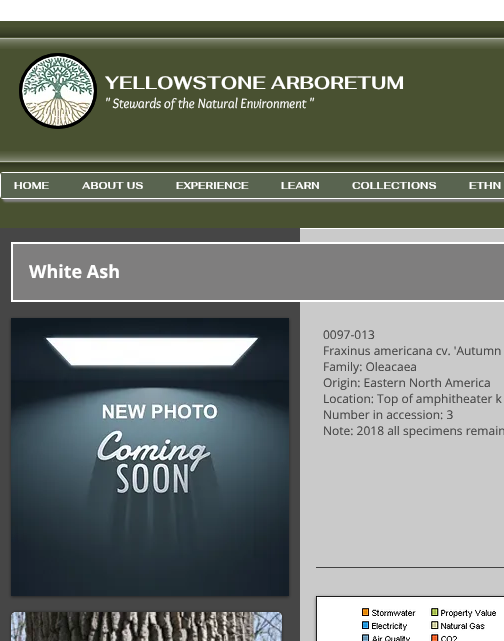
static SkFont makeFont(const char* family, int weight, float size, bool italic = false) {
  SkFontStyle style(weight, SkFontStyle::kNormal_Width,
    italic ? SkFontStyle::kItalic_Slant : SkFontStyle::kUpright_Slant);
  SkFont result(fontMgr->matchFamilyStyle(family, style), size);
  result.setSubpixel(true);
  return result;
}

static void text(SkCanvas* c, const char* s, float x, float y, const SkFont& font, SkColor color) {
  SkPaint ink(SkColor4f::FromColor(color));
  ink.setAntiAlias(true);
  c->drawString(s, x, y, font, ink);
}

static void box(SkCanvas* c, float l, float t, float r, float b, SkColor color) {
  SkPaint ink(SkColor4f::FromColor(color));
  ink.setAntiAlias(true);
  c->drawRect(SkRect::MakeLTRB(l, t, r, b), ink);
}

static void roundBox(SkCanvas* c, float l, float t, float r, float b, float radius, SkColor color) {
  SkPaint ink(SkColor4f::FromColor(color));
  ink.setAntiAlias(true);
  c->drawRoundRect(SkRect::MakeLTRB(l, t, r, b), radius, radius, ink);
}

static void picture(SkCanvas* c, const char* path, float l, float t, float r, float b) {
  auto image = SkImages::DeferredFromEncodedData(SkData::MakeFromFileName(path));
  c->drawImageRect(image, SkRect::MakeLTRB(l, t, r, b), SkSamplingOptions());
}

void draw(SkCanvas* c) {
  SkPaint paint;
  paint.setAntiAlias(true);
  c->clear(0xffffffff);
  box(c, 0, 21, 504, 228, 0xff495131);
  picture(c, "img_01.png", 0, 27, 504, 49);
  paint.setColor(0xff000000);
  c->drawOval(SkRect::MakeLTRB(19, 53, 97, 129), paint);
  paint.setStyle(SkPaint::kStroke_Style);
  paint.setStrokeWidth(3);
  c->drawPath(SkPathBuilder().moveTo(58, 54.5f).cubicTo(78.5f, 54.5f, 95.5f, 71, 95.5f, 91).cubicTo(95.5f, 111, 78.5f, 127.5f, 58, 127.5f).cubicTo(37.5f, 127.5f, 20.5f, 111, 20.5f, 91).cubicTo(20.5f, 71, 37.5f, 54.5f, 58, 54.5f).close().detach(), paint);
  picture(c, "img_02.png", 22, 56, 94, 126);
  SkFont face1 = makeFont("Fahkwang", 700, 18);
  text(c, "YELLOWSTONE ARBORETUM", 105, 89, face1, 0xffffffff);
  SkFont face2 = makeFont("Overlock", 400, 14, true);
  text(c, "\" Stewards of the Natural Environment \"", 105, 108, face2, 0xffffffff);
  picture(c, "img_03.png", 0, 151, 504, 173);
  paint.setStyle(SkPaint::kFill_Style);
  paint.setColor(0xff7f7e7e);
  paint.setMaskFilter(SkMaskFilter::MakeBlur(kNormal_SkBlurStyle, 1));
  c->drawRoundRect(SkRect::MakeLTRB(3, 175, 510, 202), 3, 3, paint);
  paint.setMaskFilter(nullptr);
  paint.setColor(0xff596450);
  c->drawRoundRect(SkRect::MakeLTRB(0.5f, 172.5f, 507.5f, 198.5f), 2.5f, 2.5f, paint);
  paint.setStyle(SkPaint::kStroke_Style);
  paint.setStrokeWidth(1);
  paint.setColor(0xffffffff);
  c->drawRoundRect(SkRect::MakeLTRB(0.5f, 172.5f, 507.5f, 198.5f), 2.5f, 2.5f, paint);
  box(c, 1, 173, 3, 198, 0xff596450);
  SkFont face3 = makeFont("Fahkwang", 700, 10);
  text(c, "HOME", 14, 189, face3, 0xffffffff);
  text(c, "ABOUT US", 82, 189, face3, 0xffffffff);
  text(c, "EXPERIENCE", 176, 189, face3, 0xffffffff);
  text(c, "LEARN", 281, 189, face3, 0xffffffff);
  text(c, "COLLECTIONS", 352, 189, face3, 0xffffffff);
  text(c, "ETHN", 469, 189, face3, 0xffffffff);
  box(c, 300, 229, 504, 641, 0xffcacaca);
  box(c, 0, 228, 300, 641, 0xff464646);
  paint.setStyle(SkPaint::kFill_Style);
  paint.setColor(0x80000000);
  paint.setMaskFilter(SkMaskFilter::MakeBlur(kNormal_SkBlurStyle, 1.5f));
  c->drawRect(SkRect::MakeLTRB(11, 319, 289, 597), paint);
  paint.setMaskFilter(nullptr);
  picture(c, "img_04.png", 11, 318, 289, 596);
  paint.setMaskFilter(SkMaskFilter::MakeBlur(kNormal_SkBlurStyle, 1.5f));
  c->drawRoundRect(SkRect::MakeLTRB(11, 612, 282, 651), 5, 5, paint);
  paint.setMaskFilter(nullptr);
  roundBox(c, 11, 612, 282, 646, 5, 0xffffffff);
  picture(c, "img_05.png", 11, 612, 282, 641);
  paint.setColor(0xff7f7e7e);
  c->drawRect(SkRect::MakeLTRB(12, 243, 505, 301), paint);
  paint.setStyle(SkPaint::kStroke_Style);
  paint.setStrokeWidth(2);
  paint.setColor(0xffffffff);
  c->drawRect(SkRect::MakeLTRB(12, 243, 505, 301), paint);
  SkFont face4 = makeFont("Open Sans", 700, 18);
  text(c, "White Ash", 29, 278, face4, 0xffffffff);
  SkFont face5 = makeFont("Open Sans", 400, 12);
  text(c, "0097-013", 323, 339, face5, 0xff464646);
  text(c, "Fraxinus americana cv. 'Autumn", 323, 355, face5, 0xff464646);
  text(c, "Family: Oleacaea", 323, 371, face5, 0xff464646);
  text(c, "Origin: Eastern North America", 323, 387, face5, 0xff464646);
  text(c, "Location: Top of amphitheater k", 323, 403, face5, 0xff464646);
  text(c, "Number in accession: 3", 323, 419, face5, 0xff464646);
  text(c, "Note: 2018 all specimens remain", 323, 435, face5, 0xff464646);
  box(c, 316, 567, 504, 568, 0xff424242);
  paint.setStyle(SkPaint::kFill_Style);
  paint.setColor(0x80000000);
  paint.setMaskFilter(SkMaskFilter::MakeBlur(kNormal_SkBlurStyle, 1.5f));
  c->drawRect(SkRect::MakeLTRB(316, 597, 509, 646), paint);
  paint.setMaskFilter(nullptr);
  picture(c, "img_06.png", 316, 596, 504, 641);
}
